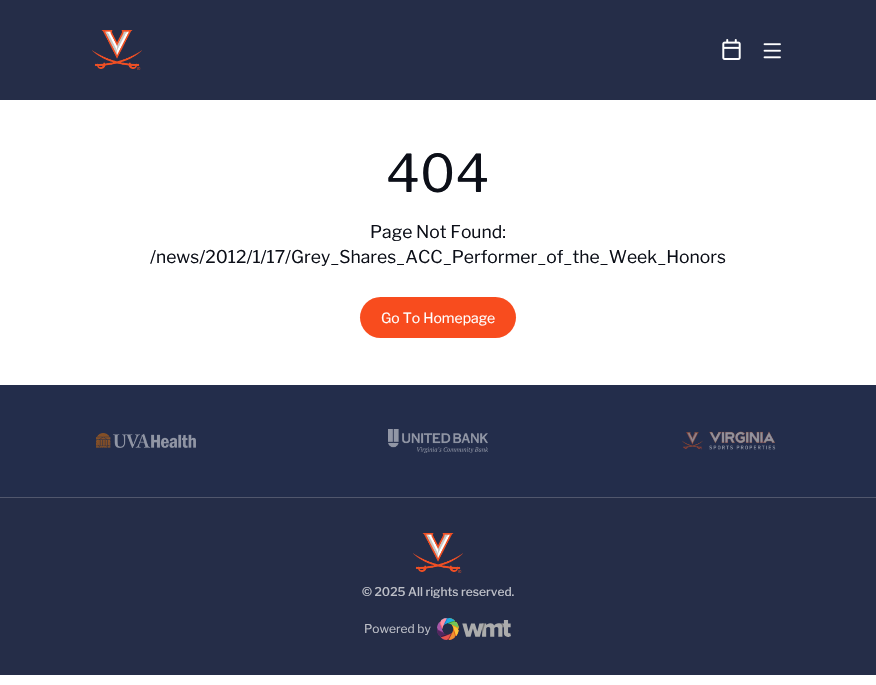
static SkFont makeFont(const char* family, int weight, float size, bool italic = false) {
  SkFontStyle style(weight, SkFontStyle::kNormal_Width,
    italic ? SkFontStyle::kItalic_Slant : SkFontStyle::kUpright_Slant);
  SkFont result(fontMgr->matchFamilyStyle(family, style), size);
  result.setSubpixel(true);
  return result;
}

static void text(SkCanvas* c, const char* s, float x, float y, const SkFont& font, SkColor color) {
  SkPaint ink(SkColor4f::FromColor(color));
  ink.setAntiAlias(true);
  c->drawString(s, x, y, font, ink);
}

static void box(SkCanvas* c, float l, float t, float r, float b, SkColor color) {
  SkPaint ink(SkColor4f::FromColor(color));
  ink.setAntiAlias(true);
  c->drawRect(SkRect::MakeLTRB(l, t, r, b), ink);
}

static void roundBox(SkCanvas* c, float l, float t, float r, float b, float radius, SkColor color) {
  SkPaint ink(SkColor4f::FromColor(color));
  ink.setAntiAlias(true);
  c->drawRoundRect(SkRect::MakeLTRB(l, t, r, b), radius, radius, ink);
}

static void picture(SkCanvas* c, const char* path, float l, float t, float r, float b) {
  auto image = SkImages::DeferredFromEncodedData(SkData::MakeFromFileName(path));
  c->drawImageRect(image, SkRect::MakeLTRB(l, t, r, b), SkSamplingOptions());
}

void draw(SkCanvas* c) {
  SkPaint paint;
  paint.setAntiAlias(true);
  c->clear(0xffffffff);
  box(c, 0, 0, 876, 100, 0xff252d48);
  picture(c, "img_01.png", 92, 30, 142, 70);
  picture(c, "img_02.png", 722, 39, 741, 60);
  picture(c, "img_03.png", 763, 43, 781, 59);
  SkFont face1 = makeFont("Libre Franklin", 400, 52);
  text(c, "404", 386, 192, face1, 0xff0c0f18);
  SkFont face2 = makeFont("Libre Franklin", 400, 17.5f);
  text(c, "Page Not Found:", 370, 238, face2, 0xff0c0f18);
  text(c, "/news/2012/1/17/Grey_Shares_ACC_Performer_of_the_Week_Honors", 150, 263, face2, 0xff0c0f18);
  roundBox(c, 360, 297, 516, 338, 20.5f, 0xfff84c1e);
  SkFont face3 = makeFont("Libre Franklin", 400, 14);
  text(c, "Go To Homepage", 381, 323, face3, 0xffffffff);
  box(c, 0, 385, 876, 497, 0xff232d4b);
  picture(c, "img_04.png", 96, 433, 196, 448);
  picture(c, "img_05.png", 388, 429, 488, 453);
  picture(c, "img_06.png", 682, 431, 776, 450);
  box(c, 0, 498, 876, 675, 0xff252d48);
  box(c, 0, 497, 876, 498, 0xff51576d);
  picture(c, "img_07.png", 413, 533, 463, 573);
  SkFont face4 = makeFont("Libre Franklin", 500, 12);
  text(c, "© 2025 All rights reserved.", 362, 596, face4, 0xffbec0c8);
  SkFont face5 = makeFont("Libre Franklin", 400, 12);
  text(c, "Powered by", 364, 633, face5, 0xffbec0c8);
  picture(c, "img_08.png", 437, 618, 511, 640);
}
